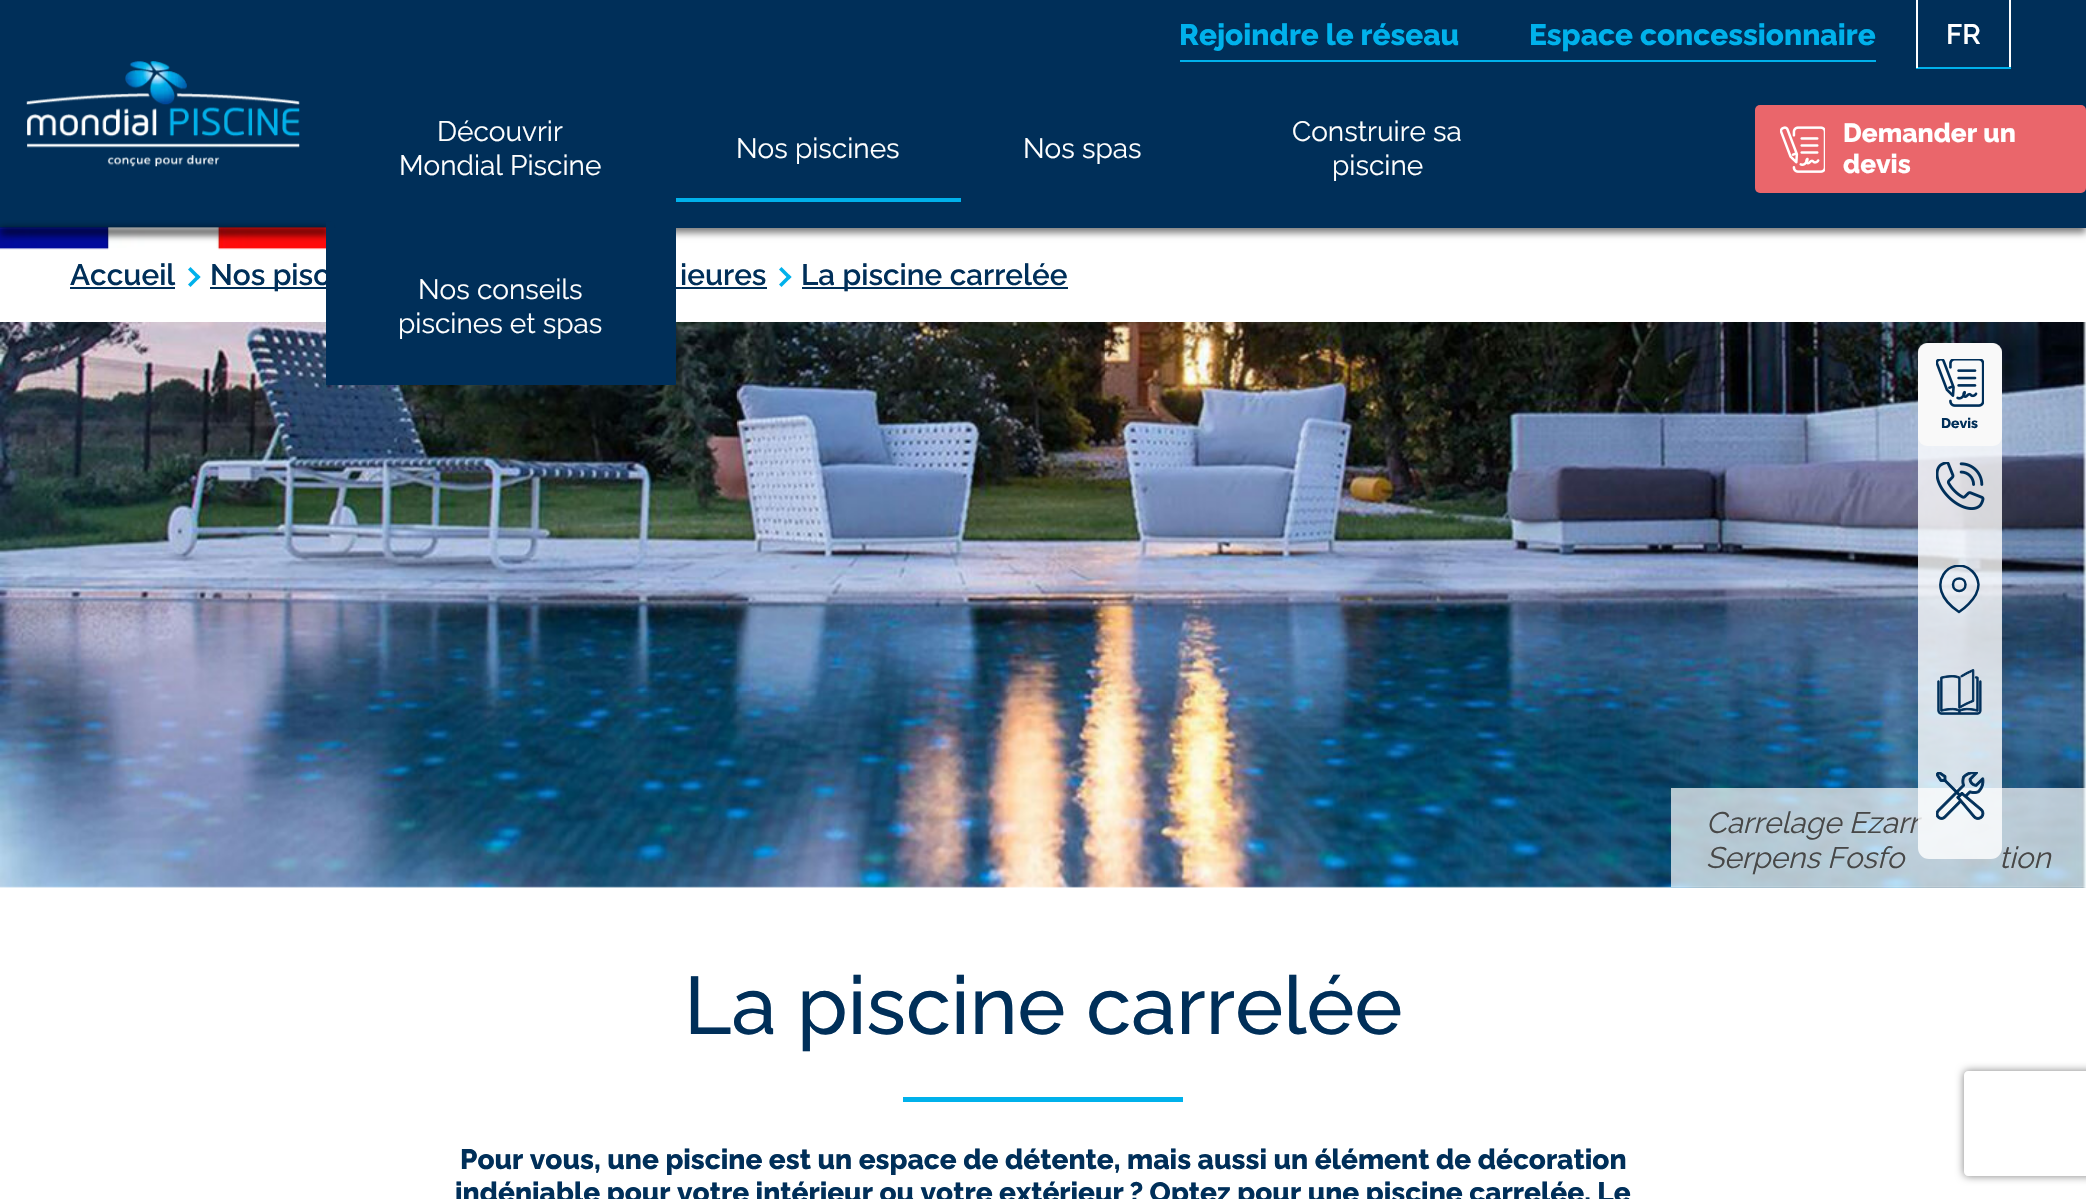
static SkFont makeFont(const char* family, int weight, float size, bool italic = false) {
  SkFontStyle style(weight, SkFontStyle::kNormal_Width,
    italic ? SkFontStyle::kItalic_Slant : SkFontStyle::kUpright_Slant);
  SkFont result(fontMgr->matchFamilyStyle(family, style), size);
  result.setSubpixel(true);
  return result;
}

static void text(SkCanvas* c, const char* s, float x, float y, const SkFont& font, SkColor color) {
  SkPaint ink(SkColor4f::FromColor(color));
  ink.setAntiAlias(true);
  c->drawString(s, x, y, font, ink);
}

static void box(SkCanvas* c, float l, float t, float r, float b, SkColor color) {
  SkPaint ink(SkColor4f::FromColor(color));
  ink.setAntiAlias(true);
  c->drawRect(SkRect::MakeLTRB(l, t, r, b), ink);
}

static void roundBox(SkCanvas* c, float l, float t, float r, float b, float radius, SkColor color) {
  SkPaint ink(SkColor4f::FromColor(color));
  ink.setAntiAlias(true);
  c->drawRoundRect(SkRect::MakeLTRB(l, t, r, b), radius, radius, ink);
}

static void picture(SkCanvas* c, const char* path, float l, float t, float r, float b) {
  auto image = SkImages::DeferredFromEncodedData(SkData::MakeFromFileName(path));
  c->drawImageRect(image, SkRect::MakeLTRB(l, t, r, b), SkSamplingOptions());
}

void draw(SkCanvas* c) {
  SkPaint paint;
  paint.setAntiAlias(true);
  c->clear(0xffffffff);
  paint.setColor(0x80000000);
  paint.setMaskFilter(SkMaskFilter::MakeBlur(kNormal_SkBlurStyle, 3.5f));
  c->drawRect(SkRect::MakeLTRB(0, 5, 2086, 233), paint);
  paint.setMaskFilter(nullptr);
  box(c, 0, 0, 2086, 228, 0xff002f59);
  box(c, 1180, 60, 1876, 62, 0xff00b1eb);
  SkFont face1 = makeFont("Raleway", 800, 29.75f);
  text(c, "Rejoindre le réseau", 1179, 45, face1, 0xff00b1eb);
  text(c, "Espace concessionnaire", 1529, 45, face1, 0xff00b1eb);
  box(c, 2009, 0, 2011, 68, 0xffffffff);
  box(c, 1916, 67, 2011, 69, 0xff00b1eb);
  box(c, 1916, 0, 1918, 68, 0xffffffff);
  SkFont face2 = makeFont("Raleway", 600, 28);
  text(c, "FR", 1946, 44, face2, 0xffffffff);
  picture(c, "img_01.png", 0, 227, 326, 250);
  paint.setColor(0xb3000000);
  paint.setMaskFilter(SkMaskFilter::MakeBlur(kNormal_SkBlurStyle, 3.5f));
  c->drawRect(SkRect::MakeLTRB(0, 228, 329, 235), paint);
  paint.setMaskFilter(nullptr);
  picture(c, "img_02.png", 26, 61, 300, 167);
  box(c, 326, 222, 334, 228, 0xff002f59);
  SkFont face3 = makeFont("Raleway", 400, 28);
  text(c, "Découvrir", 437, 141, face3, 0xffffffff);
  text(c, "Mondial Piscine", 399, 175, face3, 0xffffffff);
  text(c, "Nos piscines", 736, 158, face3, 0xffffffff);
  box(c, 676, 198, 961, 202, 0xff00b1eb);
  text(c, "Nos spas", 1023, 158, face3, 0xffffffff);
  text(c, "Construire sa", 1292, 141, face3, 0xffffffff);
  text(c, "piscine", 1332, 175, face3, 0xffffffff);
  picture(c, "img_04.png", 0, 322, 2086, 888);
  box(c, 326, 228, 676, 385, 0xff002f59);
  text(c, "Nos conseils", 418, 299, face3, 0xffffffff);
  text(c, "piscines et spas", 398, 333, face3, 0xffffffff);
  roundBox(c, 1755, 105, 2086, 193, 5, 0xffea666b);
  picture(c, "img_03.png", 1780, 126, 1825, 173);
  SkFont face4 = makeFont("Raleway", 800, 26.25f);
  text(c, "Demander un", 1843, 142, face4, 0xffffffff);
  text(c, "devis", 1843, 173, face4, 0xffffffff);
  SkFont face5 = makeFont("Raleway", 600, 29.75f);
  text(c, "Accueil", 70, 285, face5, 0xff002f59);
  box(c, 70, 287, 175, 289, 0xff002f59);
  paint.setColor(0xff00b1eb);
  c->drawPath(SkPathBuilder().moveTo(188, 269.5f).lineTo(190.5f, 267).lineTo(200.5f, 277).lineTo(198, 279.5f).close().detach(), paint);
  c->drawPath(SkPathBuilder().moveTo(188, 284.5f).lineTo(198, 274.5f).lineTo(200.5f, 277).lineTo(190.5f, 287).close().detach(), paint);
  box(c, 210, 287, 326, 289, 0xff002f59);
  text(c, "Nos pisc", 210, 285, face5, 0xff002f59);
  text(c, "ieures", 680, 285, face5, 0xff002f59);
  box(c, 676, 287, 767, 289, 0xff002f59);
  c->drawPath(SkPathBuilder().moveTo(779, 269.5f).lineTo(781.5f, 267).lineTo(791.5f, 277).lineTo(789, 279.5f).close().detach(), paint);
  c->drawPath(SkPathBuilder().moveTo(779, 284.5f).lineTo(789, 274.5f).lineTo(791.5f, 277).lineTo(781.5f, 287).close().detach(), paint);
  box(c, 802, 287, 1068, 289, 0xff002f59);
  text(c, "La piscine carrelée", 801, 285, face5, 0xff002f59);
  box(c, 1671, 788, 2086, 887, 0xb3ffffff);
  SkFont face6 = makeFont("Raleway", 400, 29.75f, true);
  text(c, "Carrelage Ezarr", 1706, 833, face6, 0xff474747);
  text(c, "Serpens Fosfo", 1706, 868, face6, 0xff474747);
  text(c, "tion", 1999, 868, face6, 0xff474747);
  SkFont face7 = makeFont("Raleway", 500, 81.25f);
  text(c, "La piscine carrelée", 684, 1034, face7, 0xff002f59);
  box(c, 903, 1097, 1183, 1102, 0xff00b1eb);
  SkFont face8 = makeFont("Raleway", 800, 28);
  text(c, "Pour vous, une piscine est un espace de détente, mais aussi un élément de décoration", 460, 1169, face8, 0xff002f59);
  text(c, "indéniable pour votre intérieur ou votre extérieur ? Optez pour une piscine carrelée. Le", 455, 1202, face8, 0xff002f59);
  roundBox(c, 1918, 343, 2002, 446, 9, 0xffdddddd);
  roundBox(c, 1918, 343, 2002, 859, 11, 0xccffffff);
  picture(c, "img_05.png", 1936, 359, 1984, 407);
  SkFont face9 = makeFont("Raleway", 800, 14);
  text(c, "Devis", 1941, 428, face9, 0xff002f59);
  picture(c, "img_06.png", 1936, 462, 1985, 510);
  c->save();
  c->clipRect(SkRect::MakeLTRB(1939, 565, 1981, 614));
  paint.setStyle(SkPaint::kStroke_Style);
  paint.setStrokeWidth(2.5f);
  paint.setStrokeCap(SkPaint::kRound_Cap);
  paint.setStrokeJoin(SkPaint::kRound_Join);
  paint.setColor(0xff002f59);
  c->drawPath(SkPathBuilder().moveTo(1978.5f, 584.5f).cubicTo(1978.5f, 599.5f, 1959, 612, 1959, 612).cubicTo(1919, 585.5f, 1953, 552, 1972.5f, 571.5f).cubicTo(1976, 575, 1978, 579.5f, 1978.5f, 584.5f).close().detach(), paint);
  c->restore();
  c->drawPath(SkPathBuilder().moveTo(1965.5f, 584.5f).cubicTo(1965.5f, 593, 1953, 593, 1953, 584.5f).cubicTo(1953, 576.5f, 1965.5f, 576.5f, 1965.5f, 584.5f).close().detach(), paint);
  picture(c, "img_07.png", 1937, 669, 1982, 715);
  picture(c, "img_08.png", 1936, 772, 1985, 820);
  c->save();
  c->clipPath(SkPathBuilder(SkPathFillType::kEvenOdd).moveTo(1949, 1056).lineTo(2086, 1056).lineTo(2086, 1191).lineTo(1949, 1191).close().moveTo(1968, 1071).lineTo(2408, 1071).cubicTo(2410, 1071, 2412, 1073, 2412, 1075).lineTo(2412, 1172).cubicTo(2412, 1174, 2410, 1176, 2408, 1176).lineTo(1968, 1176).cubicTo(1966, 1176, 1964, 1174, 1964, 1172).lineTo(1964, 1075).cubicTo(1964, 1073, 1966, 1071, 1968, 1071).close().detach(), true);
  paint.setStyle(SkPaint::kFill_Style);
  paint.setColor(0xff808080);
  paint.setMaskFilter(SkMaskFilter::MakeBlur(kNormal_SkBlurStyle, 4.5f));
  c->drawRoundRect(SkRect::MakeLTRB(1964, 1071, 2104, 1176), 4, 4, paint);
  paint.setMaskFilter(nullptr);
  c->restore();
}
